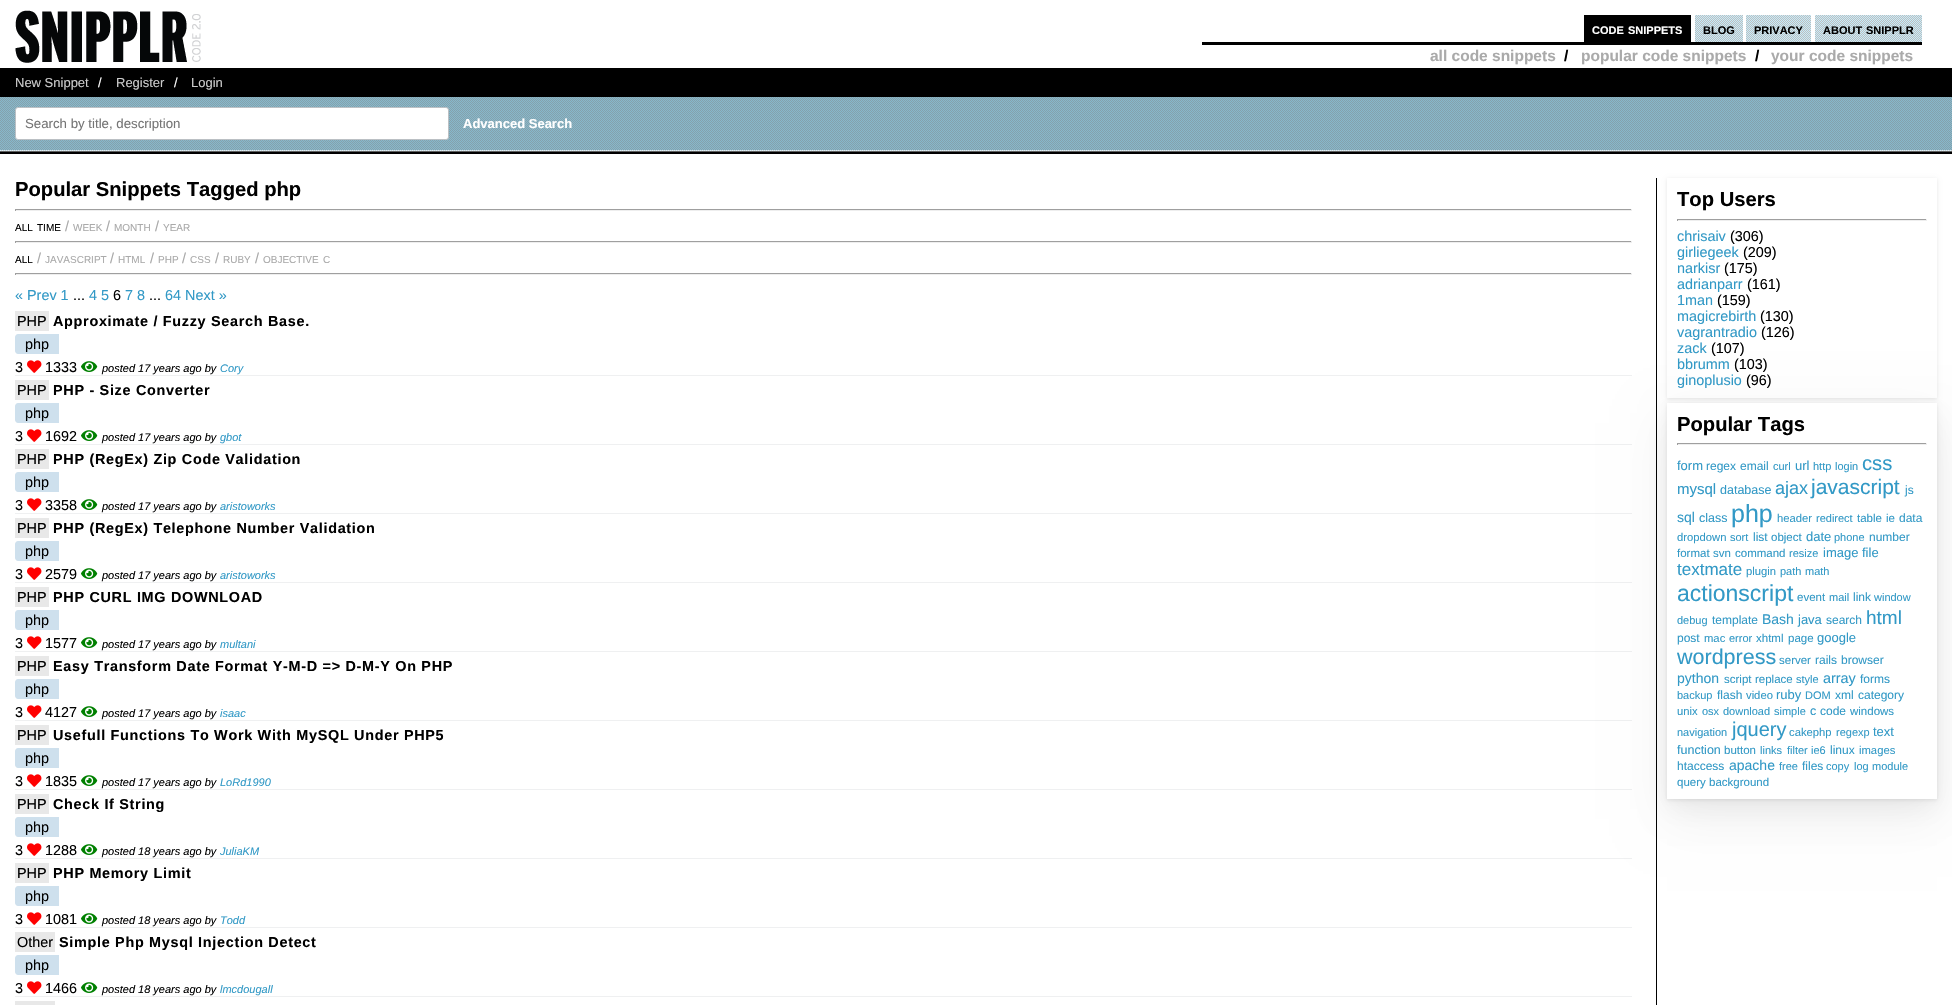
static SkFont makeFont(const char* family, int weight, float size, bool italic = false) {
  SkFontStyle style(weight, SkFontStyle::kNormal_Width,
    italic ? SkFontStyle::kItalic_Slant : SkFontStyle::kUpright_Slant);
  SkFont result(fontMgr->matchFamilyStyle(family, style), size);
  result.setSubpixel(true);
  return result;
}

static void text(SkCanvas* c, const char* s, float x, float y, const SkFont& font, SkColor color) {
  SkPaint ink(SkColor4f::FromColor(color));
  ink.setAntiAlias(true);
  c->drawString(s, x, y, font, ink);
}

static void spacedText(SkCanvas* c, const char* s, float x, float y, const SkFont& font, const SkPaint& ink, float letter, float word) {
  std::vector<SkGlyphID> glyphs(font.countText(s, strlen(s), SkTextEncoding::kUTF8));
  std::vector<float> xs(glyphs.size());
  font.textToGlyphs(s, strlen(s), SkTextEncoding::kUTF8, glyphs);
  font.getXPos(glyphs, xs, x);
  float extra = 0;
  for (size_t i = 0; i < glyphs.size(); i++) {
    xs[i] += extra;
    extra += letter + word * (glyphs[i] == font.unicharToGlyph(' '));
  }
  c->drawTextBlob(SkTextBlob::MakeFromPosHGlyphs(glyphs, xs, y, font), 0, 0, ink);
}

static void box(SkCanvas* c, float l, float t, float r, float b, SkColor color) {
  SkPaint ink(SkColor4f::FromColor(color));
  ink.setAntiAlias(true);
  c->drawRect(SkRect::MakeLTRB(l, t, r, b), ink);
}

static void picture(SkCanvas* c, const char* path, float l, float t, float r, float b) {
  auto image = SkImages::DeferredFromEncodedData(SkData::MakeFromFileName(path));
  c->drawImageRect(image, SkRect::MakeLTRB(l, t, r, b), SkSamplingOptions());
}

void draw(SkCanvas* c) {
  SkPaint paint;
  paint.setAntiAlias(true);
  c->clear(0xff000000);
  box(c, 0, 0, 1952, 68, 0xffffffff);
  picture(c, "img_01.png", 15, 10, 201, 63);
  box(c, 1202, 42, 1922, 45, 0xff000000);
  picture(c, "img_02.png", 1695, 15, 1743, 42);
  picture(c, "img_03.png", 1746, 15, 1811, 42);
  picture(c, "img_04.png", 1815, 15, 1922, 42);
  box(c, 1584, 15, 1691, 42, 0xff000000);
  SkFont face1 = makeFont("Liberation Sans", 700, 11);
  text(c, "CODE", 1592, 34, face1, 0xffffffff);
  text(c, "SNIPPETS", 1628, 34, face1, 0xffffffff);
  SkFont face2 = makeFont("Liberation Sans", 700, 15.5f);
  text(c, "all code snippets", 1430, 61, face2, 0xffaaaaaa);
  text(c, "/", 1564, 61, face2, 0xff000000);
  text(c, "popular code snippets", 1581, 61, face2, 0xffaaaaaa);
  text(c, "/", 1755, 61, face2, 0xff000000);
  text(c, "your code snippets", 1771, 61, face2, 0xffaaaaaa);
  text(c, "BLOG", 1703, 34, face1, 0xff000000);
  text(c, "PRIVACY", 1754, 34, face1, 0xff000000);
  text(c, "ABOUT", 1823, 34, face1, 0xff000000);
  text(c, "SNIPPLR", 1866, 34, face1, 0xff000000);
  SkFont face3 = makeFont("Liberation Sans", 400, 13);
  text(c, "New Snippet", 15, 87, face3, 0xffcccccc);
  text(c, "/", 98, 87, face3, 0xffffffff);
  text(c, "Register", 116, 87, face3, 0xffcccccc);
  text(c, "/", 174, 87, face3, 0xffffffff);
  text(c, "Login", 191, 87, face3, 0xffcccccc);
  picture(c, "img_05.png", 0, 97, 1952, 152);
  paint.setColor(0xffffffff);
  c->drawRoundRect(SkRect::MakeLTRB(15.5f, 107.5f, 448.5f, 139.5f), 2.5f, 2.5f, paint);
  paint.setStyle(SkPaint::kStroke_Style);
  paint.setStrokeWidth(1);
  paint.setColor(0xffbbc0c4);
  c->drawRoundRect(SkRect::MakeLTRB(15.5f, 107.5f, 448.5f, 139.5f), 2.5f, 2.5f, paint);
  SkFont face4 = makeFont("Liberation Sans", 400, 13.25f);
  text(c, "Search by title, description", 25, 128, face4, 0xff757575);
  SkFont face5 = makeFont("Liberation Sans", 700, 13);
  text(c, "Advanced Search", 463, 128, face5, 0xffffffff);
  box(c, 0, 154, 1952, 1005, 0xffffffff);
  box(c, 1656, 178, 1657, 1005, 0xff000000);
  SkFont face6 = makeFont("Liberation Sans", 700, 20.2f);
  text(c, "Popular Snippets Tagged php", 15, 196, face6, 0xff000000);
  box(c, 15, 209, 1632, 210, 0xff9f9f9f);
  box(c, 1631, 209, 1632, 211, 0xffeeeeee);
  box(c, 15, 210, 1632, 211, 0xffeeeeee);
  box(c, 15, 209, 16, 211, 0xff9f9f9f);
  SkFont face7 = makeFont("Liberation Sans", 400, 10);
  text(c, "ALL", 15, 231, face7, 0xff000000);
  text(c, "TIME", 37, 231, face7, 0xff000000);
  SkFont face8 = makeFont("Liberation Sans", 400, 14.4f);
  text(c, "/", 65, 231, face8, 0xffaaaaaa);
  text(c, "WEEK", 73, 231, face7, 0xffaaaaaa);
  text(c, "/", 106, 231, face8, 0xffaaaaaa);
  text(c, "MONTH", 114, 231, face7, 0xffaaaaaa);
  text(c, "/", 155, 231, face8, 0xffaaaaaa);
  text(c, "YEAR", 163, 231, face7, 0xffaaaaaa);
  box(c, 15, 241, 1632, 242, 0xff9f9f9f);
  box(c, 1631, 241, 1632, 243, 0xffeeeeee);
  box(c, 15, 242, 1632, 243, 0xffeeeeee);
  box(c, 15, 241, 16, 243, 0xff9f9f9f);
  text(c, "ALL", 15, 263, face7, 0xff000000);
  text(c, "/", 37, 263, face8, 0xffaaaaaa);
  text(c, "JAVASCRIPT", 45, 263, face7, 0xffaaaaaa);
  text(c, "/", 110, 263, face8, 0xffaaaaaa);
  text(c, "HTML", 118, 263, face7, 0xffaaaaaa);
  text(c, "/", 150, 263, face8, 0xffaaaaaa);
  text(c, "PHP", 158, 263, face7, 0xffaaaaaa);
  text(c, "/", 182, 263, face8, 0xffaaaaaa);
  text(c, "CSS", 190, 263, face7, 0xffaaaaaa);
  text(c, "/", 215, 263, face8, 0xffaaaaaa);
  text(c, "RUBY", 223, 263, face7, 0xffaaaaaa);
  text(c, "/", 255, 263, face8, 0xffaaaaaa);
  text(c, "OBJECTIVE", 263, 263, face7, 0xffaaaaaa);
  text(c, "C", 323, 263, face7, 0xffaaaaaa);
  box(c, 15, 273, 1632, 274, 0xff9f9f9f);
  box(c, 1631, 273, 1632, 275, 0xffeeeeee);
  box(c, 15, 274, 1632, 275, 0xffeeeeee);
  box(c, 15, 273, 16, 275, 0xff9f9f9f);
  text(c, "« Prev 1", 15, 300, face8, 0xff3299c6);
  text(c, "...", 73, 300, face8, 0xff000000);
  text(c, "4 5", 89, 300, face8, 0xff3299c6);
  text(c, "6", 113, 300, face8, 0xff000000);
  text(c, "7 8", 125, 300, face8, 0xff3299c6);
  text(c, "...", 149, 300, face8, 0xff000000);
  text(c, "64 Next »", 165, 300, face8, 0xff3299c6);
  box(c, 15, 375, 1632, 376, 0xffeff0f1);
  box(c, 15, 311, 49, 331, 0xffe8e8e8);
  text(c, "PHP", 17, 326, face8, 0xff000000);
  SkFont face9 = makeFont("Liberation Sans", 700, 14.4f);
  paint.setStyle(SkPaint::kFill_Style);
  paint.setColor(0xff000000);
  spacedText(c, "Approximate / Fuzzy Search Base.", 53, 326, face9, paint, 0.7f, 0);
  paint.setColor(0xffcee0ed);
  c->drawPath(SkPathBuilder().moveTo(18, 334).lineTo(59, 334).lineTo(59, 354).lineTo(18, 354).cubicTo(16.5f, 354, 15, 352.5f, 15, 351).lineTo(15, 337).cubicTo(15, 335.5f, 16.5f, 334, 18, 334).close().detach(), paint);
  text(c, "php", 25, 349, face8, 0xff000000);
  text(c, "3", 15, 372, face8, 0xff000000);
  picture(c, "img_06.png", 27, 360, 42, 373);
  text(c, "1333", 45, 372, face8, 0xff000000);
  picture(c, "img_07.png", 81, 361, 98, 372);
  SkFont face10 = makeFont("Liberation Sans", 400, 11, true);
  text(c, "posted 17 years ago by", 102, 372, face10, 0xff000000);
  text(c, "Cory", 220, 372, face10, 0xff3299c6);
  box(c, 15, 444, 1632, 445, 0xffeff0f1);
  box(c, 15, 380, 49, 400, 0xffe8e8e8);
  text(c, "PHP", 17, 395, face8, 0xff000000);
  paint.setColor(0xff000000);
  spacedText(c, "PHP - Size Converter", 53, 395, face9, paint, 0.7f, 0);
  paint.setColor(0xffcee0ed);
  c->drawPath(SkPathBuilder().moveTo(18, 403).lineTo(59, 403).lineTo(59, 423).lineTo(18, 423).cubicTo(16.5f, 423, 15, 421.5f, 15, 420).lineTo(15, 406).cubicTo(15, 404.5f, 16.5f, 403, 18, 403).close().detach(), paint);
  text(c, "php", 25, 418, face8, 0xff000000);
  text(c, "3", 15, 441, face8, 0xff000000);
  picture(c, "img_06.png", 27, 429, 42, 442);
  text(c, "1692", 45, 441, face8, 0xff000000);
  picture(c, "img_07.png", 81, 430, 98, 441);
  text(c, "posted 17 years ago by", 102, 441, face10, 0xff000000);
  text(c, "gbot", 220, 441, face10, 0xff3299c6);
  box(c, 15, 513, 1632, 514, 0xffeff0f1);
  box(c, 15, 449, 49, 469, 0xffe8e8e8);
  text(c, "PHP", 17, 464, face8, 0xff000000);
  paint.setColor(0xff000000);
  spacedText(c, "PHP (RegEx) Zip Code Validation", 53, 464, face9, paint, 0.7f, 0);
  paint.setColor(0xffcee0ed);
  c->drawPath(SkPathBuilder().moveTo(18, 472).lineTo(59, 472).lineTo(59, 492).lineTo(18, 492).cubicTo(16.5f, 492, 15, 490.5f, 15, 489).lineTo(15, 475).cubicTo(15, 473.5f, 16.5f, 472, 18, 472).close().detach(), paint);
  text(c, "php", 25, 487, face8, 0xff000000);
  text(c, "3", 15, 510, face8, 0xff000000);
  picture(c, "img_06.png", 27, 498, 42, 511);
  text(c, "3358", 45, 510, face8, 0xff000000);
  picture(c, "img_07.png", 81, 499, 98, 510);
  text(c, "posted 17 years ago by", 102, 510, face10, 0xff000000);
  text(c, "aristoworks", 220, 510, face10, 0xff3299c6);
  box(c, 15, 582, 1632, 583, 0xffeff0f1);
  box(c, 15, 518, 49, 538, 0xffe8e8e8);
  text(c, "PHP", 17, 533, face8, 0xff000000);
  paint.setColor(0xff000000);
  spacedText(c, "PHP (RegEx) Telephone Number Validation", 53, 533, face9, paint, 0.7f, 0);
  paint.setColor(0xffcee0ed);
  c->drawPath(SkPathBuilder().moveTo(18, 541).lineTo(59, 541).lineTo(59, 561).lineTo(18, 561).cubicTo(16.5f, 561, 15, 559.5f, 15, 558).lineTo(15, 544).cubicTo(15, 542.5f, 16.5f, 541, 18, 541).close().detach(), paint);
  text(c, "php", 25, 556, face8, 0xff000000);
  text(c, "3", 15, 579, face8, 0xff000000);
  picture(c, "img_06.png", 27, 567, 42, 580);
  text(c, "2579", 45, 579, face8, 0xff000000);
  picture(c, "img_07.png", 81, 568, 98, 579);
  text(c, "posted 17 years ago by", 102, 579, face10, 0xff000000);
  text(c, "aristoworks", 220, 579, face10, 0xff3299c6);
  box(c, 15, 651, 1632, 652, 0xffeff0f1);
  box(c, 15, 587, 49, 607, 0xffe8e8e8);
  text(c, "PHP", 17, 602, face8, 0xff000000);
  paint.setColor(0xff000000);
  spacedText(c, "PHP CURL IMG DOWNLOAD", 53, 602, face9, paint, 0.7f, 0);
  paint.setColor(0xffcee0ed);
  c->drawPath(SkPathBuilder().moveTo(18, 610).lineTo(59, 610).lineTo(59, 630).lineTo(18, 630).cubicTo(16.5f, 630, 15, 628.5f, 15, 627).lineTo(15, 613).cubicTo(15, 611.5f, 16.5f, 610, 18, 610).close().detach(), paint);
  text(c, "php", 25, 625, face8, 0xff000000);
  text(c, "3", 15, 648, face8, 0xff000000);
  picture(c, "img_06.png", 27, 636, 42, 649);
  text(c, "1577", 45, 648, face8, 0xff000000);
  picture(c, "img_07.png", 81, 637, 98, 648);
  text(c, "posted 17 years ago by", 102, 648, face10, 0xff000000);
  text(c, "multani", 220, 648, face10, 0xff3299c6);
  box(c, 15, 720, 1632, 721, 0xffeff0f1);
  box(c, 15, 656, 49, 676, 0xffe8e8e8);
  text(c, "PHP", 17, 671, face8, 0xff000000);
  paint.setColor(0xff000000);
  spacedText(c, "Easy Transform Date Format Y-M-D => D-M-Y On PHP", 53, 671, face9, paint, 0.7f, 0);
  paint.setColor(0xffcee0ed);
  c->drawPath(SkPathBuilder().moveTo(18, 679).lineTo(59, 679).lineTo(59, 699).lineTo(18, 699).cubicTo(16.5f, 699, 15, 697.5f, 15, 696).lineTo(15, 682).cubicTo(15, 680.5f, 16.5f, 679, 18, 679).close().detach(), paint);
  text(c, "php", 25, 694, face8, 0xff000000);
  text(c, "3", 15, 717, face8, 0xff000000);
  picture(c, "img_06.png", 27, 705, 42, 718);
  text(c, "4127", 45, 717, face8, 0xff000000);
  picture(c, "img_07.png", 81, 706, 98, 717);
  text(c, "posted 17 years ago by", 102, 717, face10, 0xff000000);
  text(c, "isaac", 220, 717, face10, 0xff3299c6);
  box(c, 15, 789, 1632, 790, 0xffeff0f1);
  box(c, 15, 725, 49, 745, 0xffe8e8e8);
  text(c, "PHP", 17, 740, face8, 0xff000000);
  paint.setColor(0xff000000);
  spacedText(c, "Usefull Functions To Work With MySQL Under PHP5", 53, 740, face9, paint, 0.7f, 0);
  paint.setColor(0xffcee0ed);
  c->drawPath(SkPathBuilder().moveTo(18, 748).lineTo(59, 748).lineTo(59, 768).lineTo(18, 768).cubicTo(16.5f, 768, 15, 766.5f, 15, 765).lineTo(15, 751).cubicTo(15, 749.5f, 16.5f, 748, 18, 748).close().detach(), paint);
  text(c, "php", 25, 763, face8, 0xff000000);
  text(c, "3", 15, 786, face8, 0xff000000);
  picture(c, "img_06.png", 27, 774, 42, 787);
  text(c, "1835", 45, 786, face8, 0xff000000);
  picture(c, "img_07.png", 81, 775, 98, 786);
  text(c, "posted 17 years ago by", 102, 786, face10, 0xff000000);
  text(c, "LoRd1990", 220, 786, face10, 0xff3299c6);
  box(c, 15, 858, 1632, 859, 0xffeff0f1);
  box(c, 15, 794, 49, 814, 0xffe8e8e8);
  text(c, "PHP", 17, 809, face8, 0xff000000);
  paint.setColor(0xff000000);
  spacedText(c, "Check If String", 53, 809, face9, paint, 0.7f, 0);
  paint.setColor(0xffcee0ed);
  c->drawPath(SkPathBuilder().moveTo(18, 817).lineTo(59, 817).lineTo(59, 837).lineTo(18, 837).cubicTo(16.5f, 837, 15, 835.5f, 15, 834).lineTo(15, 820).cubicTo(15, 818.5f, 16.5f, 817, 18, 817).close().detach(), paint);
  text(c, "php", 25, 832, face8, 0xff000000);
  text(c, "3", 15, 855, face8, 0xff000000);
  picture(c, "img_06.png", 27, 843, 42, 856);
  text(c, "1288", 45, 855, face8, 0xff000000);
  picture(c, "img_07.png", 81, 844, 98, 855);
  text(c, "posted 18 years ago by", 102, 855, face10, 0xff000000);
  text(c, "JuliaKM", 220, 855, face10, 0xff3299c6);
  box(c, 15, 927, 1632, 928, 0xffeff0f1);
  box(c, 15, 863, 49, 883, 0xffe8e8e8);
  text(c, "PHP", 17, 878, face8, 0xff000000);
  paint.setColor(0xff000000);
  spacedText(c, "PHP Memory Limit", 53, 878, face9, paint, 0.7f, 0);
  paint.setColor(0xffcee0ed);
  c->drawPath(SkPathBuilder().moveTo(18, 886).lineTo(59, 886).lineTo(59, 906).lineTo(18, 906).cubicTo(16.5f, 906, 15, 904.5f, 15, 903).lineTo(15, 889).cubicTo(15, 887.5f, 16.5f, 886, 18, 886).close().detach(), paint);
  text(c, "php", 25, 901, face8, 0xff000000);
  text(c, "3", 15, 924, face8, 0xff000000);
  picture(c, "img_06.png", 27, 912, 42, 925);
  text(c, "1081", 45, 924, face8, 0xff000000);
  picture(c, "img_07.png", 81, 913, 98, 924);
  text(c, "posted 18 years ago by", 102, 924, face10, 0xff000000);
  text(c, "Todd", 220, 924, face10, 0xff3299c6);
  box(c, 15, 996, 1632, 997, 0xffeff0f1);
  box(c, 15, 932, 55, 952, 0xffe8e8e8);
  text(c, "Other", 17, 947, face8, 0xff000000);
  paint.setColor(0xff000000);
  spacedText(c, "Simple Php Mysql Injection Detect", 59, 947, face9, paint, 0.7f, 0);
  paint.setColor(0xffcee0ed);
  c->drawPath(SkPathBuilder().moveTo(18, 955).lineTo(59, 955).lineTo(59, 975).lineTo(18, 975).cubicTo(16.5f, 975, 15, 973.5f, 15, 972).lineTo(15, 958).cubicTo(15, 956.5f, 16.5f, 955, 18, 955).close().detach(), paint);
  text(c, "php", 25, 970, face8, 0xff000000);
  text(c, "3", 15, 993, face8, 0xff000000);
  picture(c, "img_06.png", 27, 981, 42, 994);
  text(c, "1466", 45, 993, face8, 0xff000000);
  picture(c, "img_07.png", 81, 982, 98, 993);
  text(c, "posted 18 years ago by", 102, 993, face10, 0xff000000);
  text(c, "lmcdougall", 220, 993, face10, 0xff3299c6);
  box(c, 15, 1001, 55, 1005, 0xffe8e8e8);
  c->save();
  c->clipPath(SkPathBuilder(SkPathFillType::kEvenOdd).moveTo(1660, 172).lineTo(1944, 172).lineTo(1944, 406).lineTo(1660, 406).close().moveTo(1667, 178).lineTo(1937, 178).lineTo(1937, 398).lineTo(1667, 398).close().detach(), true);
  paint.setColor(0x1a000000);
  paint.setMaskFilter(SkMaskFilter::MakeBlur(kNormal_SkBlurStyle, 2));
  c->drawRect(SkRect::MakeLTRB(1667, 179, 1937, 399), paint);
  paint.setMaskFilter(nullptr);
  c->restore();
  text(c, "Top Users", 1677, 206, face6, 0xff000000);
  box(c, 1677, 219, 1927, 220, 0xff9f9f9f);
  box(c, 1926, 219, 1927, 221, 0xffeeeeee);
  box(c, 1677, 220, 1927, 221, 0xffeeeeee);
  box(c, 1677, 219, 1678, 221, 0xff9f9f9f);
  text(c, "chrisaiv", 1677, 241, face8, 0xff3299c6);
  text(c, "(306)", 1730, 241, face8, 0xff000000);
  text(c, "girliegeek", 1677, 257, face8, 0xff3299c6);
  text(c, "(209)", 1743, 257, face8, 0xff000000);
  text(c, "narkisr", 1677, 273, face8, 0xff3299c6);
  text(c, "(175)", 1724, 273, face8, 0xff000000);
  text(c, "adrianparr", 1677, 289, face8, 0xff3299c6);
  text(c, "(161)", 1747, 289, face8, 0xff000000);
  text(c, "1man", 1677, 305, face8, 0xff3299c6);
  text(c, "(159)", 1717, 305, face8, 0xff000000);
  text(c, "magicrebirth", 1677, 321, face8, 0xff3299c6);
  text(c, "(130)", 1760, 321, face8, 0xff000000);
  text(c, "vagrantradio", 1677, 337, face8, 0xff3299c6);
  text(c, "(126)", 1761, 337, face8, 0xff000000);
  paint.setColor(0x0d000000);
  paint.setMaskFilter(SkMaskFilter::MakeBlur(kNormal_SkBlurStyle, 24));
  c->drawRect(SkRect::MakeLTRB(1667, 423, 1937, 819), paint);
  paint.setMaskFilter(nullptr);
  text(c, "zack", 1677, 353, face8, 0xff3299c6);
  text(c, "(107)", 1711, 353, face8, 0xff000000);
  text(c, "bbrumm", 1677, 369, face8, 0xff3299c6);
  text(c, "(103)", 1734, 369, face8, 0xff000000);
  paint.setMaskFilter(SkMaskFilter::MakeBlur(kNormal_SkBlurStyle, 12.5f));
  c->drawRect(SkRect::MakeLTRB(1667, 413, 1937, 809), paint);
  paint.setMaskFilter(nullptr);
  text(c, "ginoplusio", 1677, 385, face8, 0xff3299c6);
  text(c, "(96)", 1746, 385, face8, 0xff000000);
  paint.setColor(0x1a000000);
  paint.setMaskFilter(SkMaskFilter::MakeBlur(kNormal_SkBlurStyle, 2));
  c->drawRect(SkRect::MakeLTRB(1667, 404, 1937, 800), paint);
  paint.setMaskFilter(nullptr);
  box(c, 1667, 403, 1937, 799, 0xffffffff);
  text(c, "Popular Tags", 1677, 431, face6, 0xff000000);
  box(c, 1677, 443, 1927, 444, 0xff9f9f9f);
  box(c, 1926, 443, 1927, 445, 0xffeeeeee);
  box(c, 1677, 444, 1927, 445, 0xffeeeeee);
  box(c, 1677, 443, 1678, 445, 0xff9f9f9f);
  text(c, "form", 1677, 470, face3, 0xff3299c6);
  SkFont face11 = makeFont("Liberation Sans", 400, 12);
  text(c, "regex", 1706, 470, face11, 0xff3299c6);
  text(c, "email", 1740, 470, face11, 0xff3299c6);
  SkFont face12 = makeFont("Liberation Sans", 400, 11);
  text(c, "curl", 1773, 470, face12, 0xff3299c6);
  text(c, "url", 1795, 470, face3, 0xff3299c6);
  text(c, "http", 1813, 470, face12, 0xff3299c6);
  text(c, "login", 1835, 470, face12, 0xff3299c6);
  SkFont face13 = makeFont("Liberation Sans", 400, 20.2f);
  text(c, "css", 1862, 470, face13, 0xff3299c6);
  SkFont face14 = makeFont("Liberation Sans", 400, 15);
  text(c, "mysql", 1677, 494, face14, 0xff3299c6);
  SkFont face15 = makeFont("Liberation Sans", 400, 12.5f);
  text(c, "database", 1720, 494, face15, 0xff3299c6);
  SkFont face16 = makeFont("Liberation Sans", 400, 18);
  text(c, "ajax", 1775, 494, face16, 0xff3299c6);
  SkFont face17 = makeFont("Liberation Sans", 400, 21);
  text(c, "javascript", 1811, 494, face17, 0xff3299c6);
  text(c, "js", 1905, 494, face11, 0xff3299c6);
  SkFont face18 = makeFont("Liberation Sans", 400, 14);
  text(c, "sql", 1677, 522, face18, 0xff3299c6);
  text(c, "class", 1699, 522, face15, 0xff3299c6);
  SkFont face19 = makeFont("Liberation Sans", 400, 25);
  text(c, "php", 1731, 522, face19, 0xff3299c6);
  SkFont face20 = makeFont("Liberation Sans", 400, 11.25f);
  text(c, "header", 1777, 522, face20, 0xff3299c6);
  text(c, "redirect", 1816, 522, face12, 0xff3299c6);
  SkFont face21 = makeFont("Liberation Sans", 400, 11.5f);
  text(c, "table", 1857, 522, face21, 0xff3299c6);
  text(c, "ie", 1886, 522, face21, 0xff3299c6);
  text(c, "data", 1899, 522, face11, 0xff3299c6);
  text(c, "dropdown", 1677, 541, face20, 0xff3299c6);
  text(c, "sort", 1730, 541, face12, 0xff3299c6);
  text(c, "list", 1753, 541, face11, 0xff3299c6);
  text(c, "object", 1771, 541, face21, 0xff3299c6);
  text(c, "date", 1806, 541, face3, 0xff3299c6);
  text(c, "phone", 1834, 541, face12, 0xff3299c6);
  text(c, "number", 1869, 541, face11, 0xff3299c6);
  text(c, "format", 1677, 557, face21, 0xff3299c6);
  text(c, "svn", 1713, 557, face21, 0xff3299c6);
  text(c, "command", 1735, 557, face21, 0xff3299c6);
  text(c, "resize", 1789, 557, face12, 0xff3299c6);
  text(c, "image", 1823, 557, face3, 0xff3299c6);
  text(c, "file", 1862, 557, face3, 0xff3299c6);
  SkFont face22 = makeFont("Liberation Sans", 400, 17);
  text(c, "textmate", 1677, 575, face22, 0xff3299c6);
  text(c, "plugin", 1746, 575, face20, 0xff3299c6);
  text(c, "path", 1780, 575, face12, 0xff3299c6);
  text(c, "math", 1805, 575, face12, 0xff3299c6);
  SkFont face23 = makeFont("Liberation Sans", 400, 23);
  text(c, "actionscript", 1677, 601, face23, 0xff3299c6);
  text(c, "event", 1797, 601, face21, 0xff3299c6);
  text(c, "mail", 1829, 601, face12, 0xff3299c6);
  text(c, "link", 1853, 601, face11, 0xff3299c6);
  text(c, "window", 1874, 601, face12, 0xff3299c6);
  text(c, "debug", 1677, 624, face12, 0xff3299c6);
  text(c, "template", 1712, 624, face11, 0xff3299c6);
  text(c, "Bash", 1762, 624, face18, 0xff3299c6);
  text(c, "java", 1798, 624, face3, 0xff3299c6);
  text(c, "search", 1826, 624, face11, 0xff3299c6);
  SkFont face24 = makeFont("Liberation Sans", 400, 19);
  text(c, "html", 1866, 624, face24, 0xff3299c6);
  text(c, "post", 1677, 642, face11, 0xff3299c6);
  text(c, "mac", 1704, 642, face20, 0xff3299c6);
  text(c, "error", 1729, 642, face12, 0xff3299c6);
  text(c, "xhtml", 1756, 642, face21, 0xff3299c6);
  text(c, "page", 1788, 642, face21, 0xff3299c6);
  text(c, "google", 1817, 642, face3, 0xff3299c6);
  SkFont face25 = makeFont("Liberation Sans", 400, 21.5f);
  text(c, "wordpress", 1677, 664, face25, 0xff3299c6);
  text(c, "server", 1779, 664, face21, 0xff3299c6);
  text(c, "rails", 1815, 664, face11, 0xff3299c6);
  text(c, "browser", 1841, 664, face11, 0xff3299c6);
  text(c, "python", 1677, 683, face18, 0xff3299c6);
  text(c, "script", 1724, 683, face21, 0xff3299c6);
  text(c, "replace", 1755, 683, face21, 0xff3299c6);
  text(c, "style", 1796, 683, face12, 0xff3299c6);
  text(c, "array", 1823, 683, face8, 0xff3299c6);
  text(c, "forms", 1860, 683, face11, 0xff3299c6);
  text(c, "backup", 1677, 699, face12, 0xff3299c6);
  text(c, "flash", 1717, 699, face11, 0xff3299c6);
  text(c, "video", 1746, 699, face20, 0xff3299c6);
  text(c, "ruby", 1776, 699, face3, 0xff3299c6);
  text(c, "DOM", 1805, 699, face12, 0xff3299c6);
  text(c, "xml", 1835, 699, face11, 0xff3299c6);
  text(c, "category", 1858, 699, face11, 0xff3299c6);
  text(c, "unix", 1677, 715, face20, 0xff3299c6);
  text(c, "osx", 1702, 715, face12, 0xff3299c6);
  text(c, "download", 1723, 715, face12, 0xff3299c6);
  text(c, "simple", 1774, 715, face12, 0xff3299c6);
  text(c, "c", 1810, 715, face15, 0xff3299c6);
  text(c, "code", 1820, 715, face11, 0xff3299c6);
  text(c, "windows", 1850, 715, face21, 0xff3299c6);
  text(c, "navigation", 1677, 736, face12, 0xff3299c6);
  SkFont face26 = makeFont("Liberation Sans", 400, 20);
  text(c, "jquery", 1732, 736, face26, 0xff3299c6);
  text(c, "cakephp", 1789, 736, face20, 0xff3299c6);
  text(c, "regexp", 1836, 736, face12, 0xff3299c6);
  text(c, "text", 1873, 736, face3, 0xff3299c6);
  text(c, "function", 1677, 754, face15, 0xff3299c6);
  text(c, "button", 1724, 754, face21, 0xff3299c6);
  text(c, "links", 1760, 754, face12, 0xff3299c6);
  text(c, "filter", 1787, 754, face12, 0xff3299c6);
  text(c, "ie6", 1811, 754, face12, 0xff3299c6);
  text(c, "linux", 1830, 754, face11, 0xff3299c6);
  text(c, "images", 1859, 754, face20, 0xff3299c6);
  text(c, "htaccess", 1677, 770, face11, 0xff3299c6);
  text(c, "apache", 1729, 770, face18, 0xff3299c6);
  text(c, "free", 1779, 770, face12, 0xff3299c6);
  text(c, "files", 1802, 770, face11, 0xff3299c6);
  text(c, "copy", 1826, 770, face12, 0xff3299c6);
  text(c, "log", 1854, 770, face12, 0xff3299c6);
  text(c, "module", 1872, 770, face12, 0xff3299c6);
  text(c, "query", 1677, 786, face21, 0xff3299c6);
  text(c, "background", 1709, 786, face21, 0xff3299c6);
}
